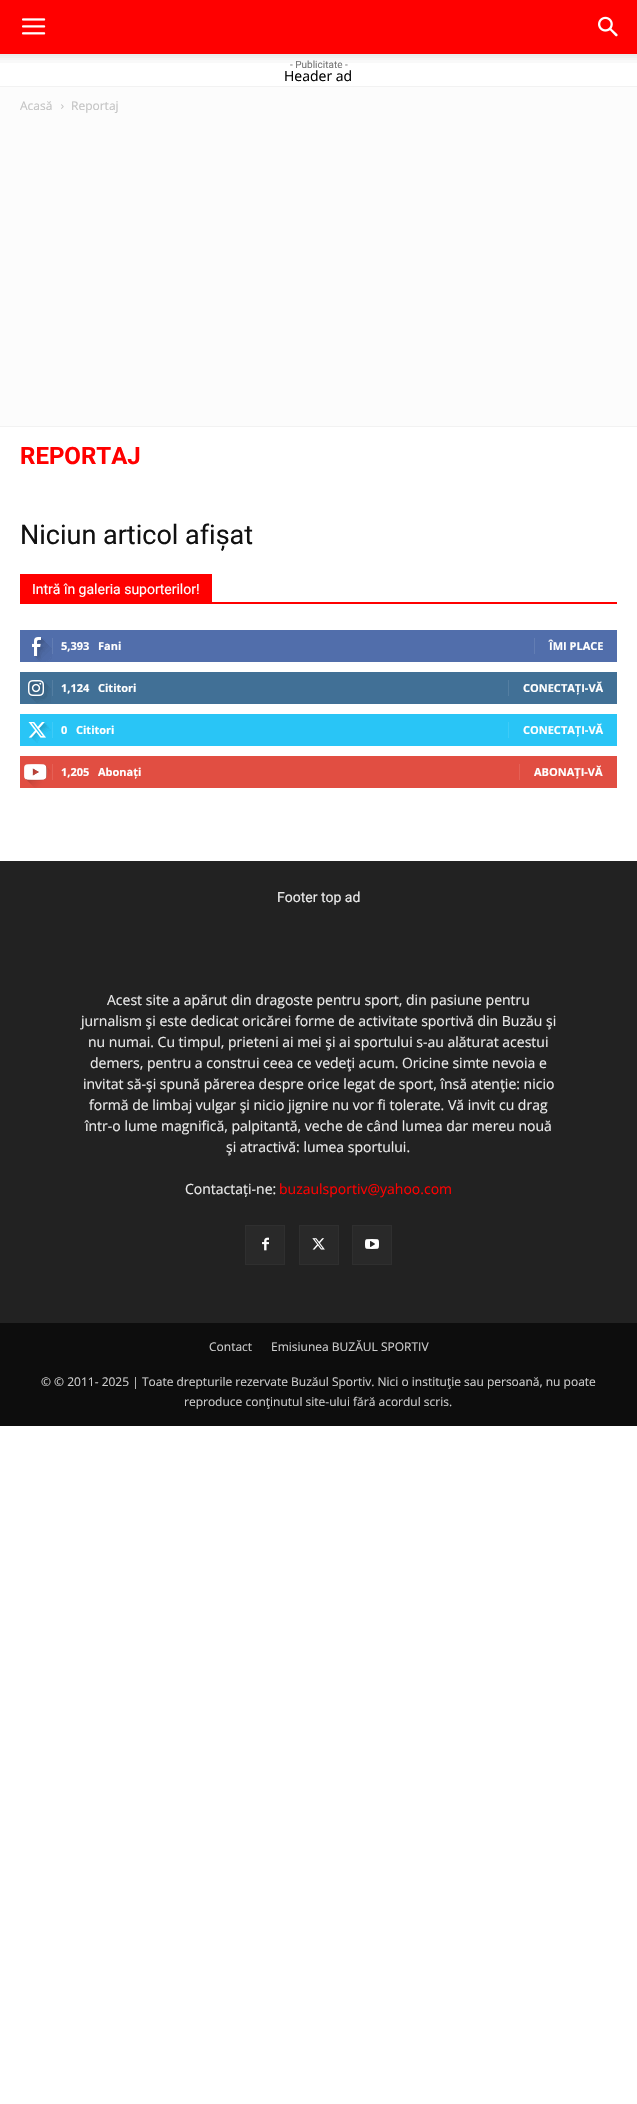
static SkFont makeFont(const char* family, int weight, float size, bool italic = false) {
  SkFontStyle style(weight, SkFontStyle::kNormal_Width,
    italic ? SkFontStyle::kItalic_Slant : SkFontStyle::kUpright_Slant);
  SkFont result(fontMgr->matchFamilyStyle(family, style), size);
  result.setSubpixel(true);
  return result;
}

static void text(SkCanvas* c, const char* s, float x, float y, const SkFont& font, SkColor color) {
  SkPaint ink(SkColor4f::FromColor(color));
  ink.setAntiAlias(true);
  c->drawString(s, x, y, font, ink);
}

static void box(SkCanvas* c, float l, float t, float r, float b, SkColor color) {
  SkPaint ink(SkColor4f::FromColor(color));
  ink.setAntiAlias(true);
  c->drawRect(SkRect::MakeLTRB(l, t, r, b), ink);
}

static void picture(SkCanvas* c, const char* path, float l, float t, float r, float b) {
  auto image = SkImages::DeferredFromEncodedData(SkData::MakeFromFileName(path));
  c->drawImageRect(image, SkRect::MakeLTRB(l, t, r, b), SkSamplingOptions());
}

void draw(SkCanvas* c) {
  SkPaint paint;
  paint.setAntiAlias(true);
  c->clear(0xffffffff);
  box(c, 0, 0, 637, 54, 0xffff0000);
  picture(c, "img_01.png", 22, 18, 46, 35);
  picture(c, "img_02.png", 598, 16, 618, 37);
  SkFont face1 = makeFont("Roboto", 400, 10);
  text(c, "- Publicitate -", 290, 68, face1, 0xff767676);
  picture(c, "img_03.png", 0, 54, 637, 63);
  SkFont face2 = makeFont("Open Sans", 400, 14);
  text(c, "Header ad", 284, 81, face2, 0xff000000);
  box(c, 0, 87, 637, 426, 0xfffcfcfc);
  box(c, 0, 86, 637, 87, 0xfff2f2f2);
  box(c, 0, 426, 637, 427, 0xfff2f2f2);
  SkFont face3 = makeFont("Open Sans", 400, 12);
  text(c, "Acasă", 20, 110, face3, 0xffc3c3c3);
  picture(c, "img_04.png", 61, 104, 64, 109);
  text(c, "Reportaj", 71, 110, face3, 0xffc3c3c3);
  SkFont face4 = makeFont("Roboto", 700, 24);
  text(c, "REPORTAJ", 20, 464, face4, 0xffff0000);
  SkFont face5 = makeFont("Roboto", 400, 27);
  text(c, "Niciun articol afișat", 20, 544, face5, 0xff111111);
  box(c, 20, 602, 617, 604, 0xffff0000);
  box(c, 20, 574, 212, 602, 0xffff0000);
  SkFont face6 = makeFont("Roboto", 400, 14);
  text(c, "Intră în galeria suporterilor!", 32, 594, face6, 0xffffffff);
  box(c, 20, 630, 617, 662, 0xff516eab);
  picture(c, "img_05.png", 32, 637, 52, 662);
  box(c, 52, 638, 53, 654, 0xff627db3);
  SkFont face7 = makeFont("Open Sans", 700, 11);
  text(c, "5,393", 61, 650, face7, 0xffffffff);
  text(c, "Fani", 98, 650, face7, 0xffffffff);
  box(c, 534, 638, 535, 654, 0xff627db3);
  text(c, "ÎMI PLACE", 549, 650, face7, 0xffffffff);
  box(c, 20, 672, 617, 704, 0xff417096);
  picture(c, "img_06.png", 28, 680, 51, 703);
  box(c, 52, 680, 53, 696, 0xff547ea1);
  text(c, "1,124", 61, 692, face7, 0xffffffff);
  text(c, "Cititori", 98, 692, face7, 0xffffffff);
  box(c, 508, 680, 509, 696, 0xff547ea1);
  text(c, "CONECTAȚI-VĂ", 523, 692, face7, 0xffffffff);
  box(c, 20, 714, 617, 746, 0xff29c5f6);
  picture(c, "img_07.png", 28, 722, 51, 743);
  box(c, 52, 722, 53, 738, 0xff3ecbf7);
  text(c, "0", 61, 734, face7, 0xffffffff);
  text(c, "Cititori", 76, 734, face7, 0xffffffff);
  box(c, 508, 722, 509, 738, 0xff3ecbf7);
  text(c, "CONECTAȚI-VĂ", 523, 734, face7, 0xffffffff);
  box(c, 20, 756, 617, 788, 0xffe14e42);
  picture(c, "img_08.png", 24, 764, 51, 788);
  box(c, 52, 764, 53, 780, 0xffe46055);
  text(c, "1,205", 61, 776, face7, 0xffffffff);
  text(c, "Abonați", 98, 776, face7, 0xffffffff);
  box(c, 519, 764, 520, 780, 0xffe46055);
  text(c, "ABONAȚI-VĂ", 534, 776, face7, 0xffffffff);
  box(c, 0, 861, 637, 1323, 0xff222222);
  text(c, "Footer top ad", 277, 902, face6, 0xffeaeaea);
  text(c, "Acest site a apărut din dragoste pentru sport, din pasiune pentru", 107, 1005, face2, 0xffeaeaea);
  text(c, "jurnalism şi este dedicat oricărei forme de activitate sportivă din Buzău şi", 81, 1026, face2, 0xffeaeaea);
  text(c, "nu numai. Cu timpul, prieteni ai mei şi ai sportului s-au alăturat acestui", 88, 1047, face2, 0xffeaeaea);
  text(c, "demers, pentru a construi ceea ce vedeţi acum. Oricine simte nevoia e", 90, 1068, face2, 0xffeaeaea);
  text(c, "invitat să-şi spună părerea despre orice legat de sport, însă atenţie: nicio", 83, 1089, face2, 0xffeaeaea);
  text(c, "formă de limbaj vulgar şi nicio jignire nu vor fi tolerate. Vă invit cu drag", 89, 1110, face2, 0xffeaeaea);
  text(c, "într-o lume magnifică, palpitantă, veche de când lumea dar mereu nouă", 85, 1131, face2, 0xffeaeaea);
  text(c, "şi atractivă: lumea sportului.", 226, 1152, face2, 0xffeaeaea);
  text(c, "Contactați-ne:", 185, 1194, face2, 0xffeaeaea);
  text(c, "buzaulsportiv@yahoo.com", 279, 1194, face2, 0xffff0000);
  box(c, 246, 1226, 284, 1264, 0xff292929);
  picture(c, "img_09.png", 262, 1237, 269, 1251);
  paint.setStyle(SkPaint::kStroke_Style);
  paint.setStrokeWidth(1);
  paint.setColor(0xff2f2f2f);
  c->drawRect(SkRect::MakeLTRB(245.5f, 1225.5f, 284.5f, 1264.5f), paint);
  box(c, 300, 1226, 338, 1264, 0xff292929);
  picture(c, "img_10.png", 312, 1238, 325, 1250);
  c->drawRect(SkRect::MakeLTRB(299.5f, 1225.5f, 338.5f, 1264.5f), paint);
  box(c, 353, 1226, 391, 1264, 0xff292929);
  picture(c, "img_11.png", 365, 1239, 379, 1249);
  c->drawRect(SkRect::MakeLTRB(352.5f, 1225.5f, 391.5f, 1264.5f), paint);
  box(c, 0, 1323, 637, 1426, 0xff0d0d0d);
  text(c, "Contact", 209, 1351, face3, 0xffcccccc);
  text(c, "Emisiunea BUZĂUL SPORTIV", 271, 1351, face3, 0xffcccccc);
  text(c, "© © 2011- 2025 | Toate drepturile rezervate Buzăul Sportiv. Nici o instituţie sau persoană, nu poate", 41, 1386, face3, 0xffcccccc);
  text(c, "reproduce conţinutul site-ului fără acordul scris.", 184, 1406, face3, 0xffcccccc);
}
